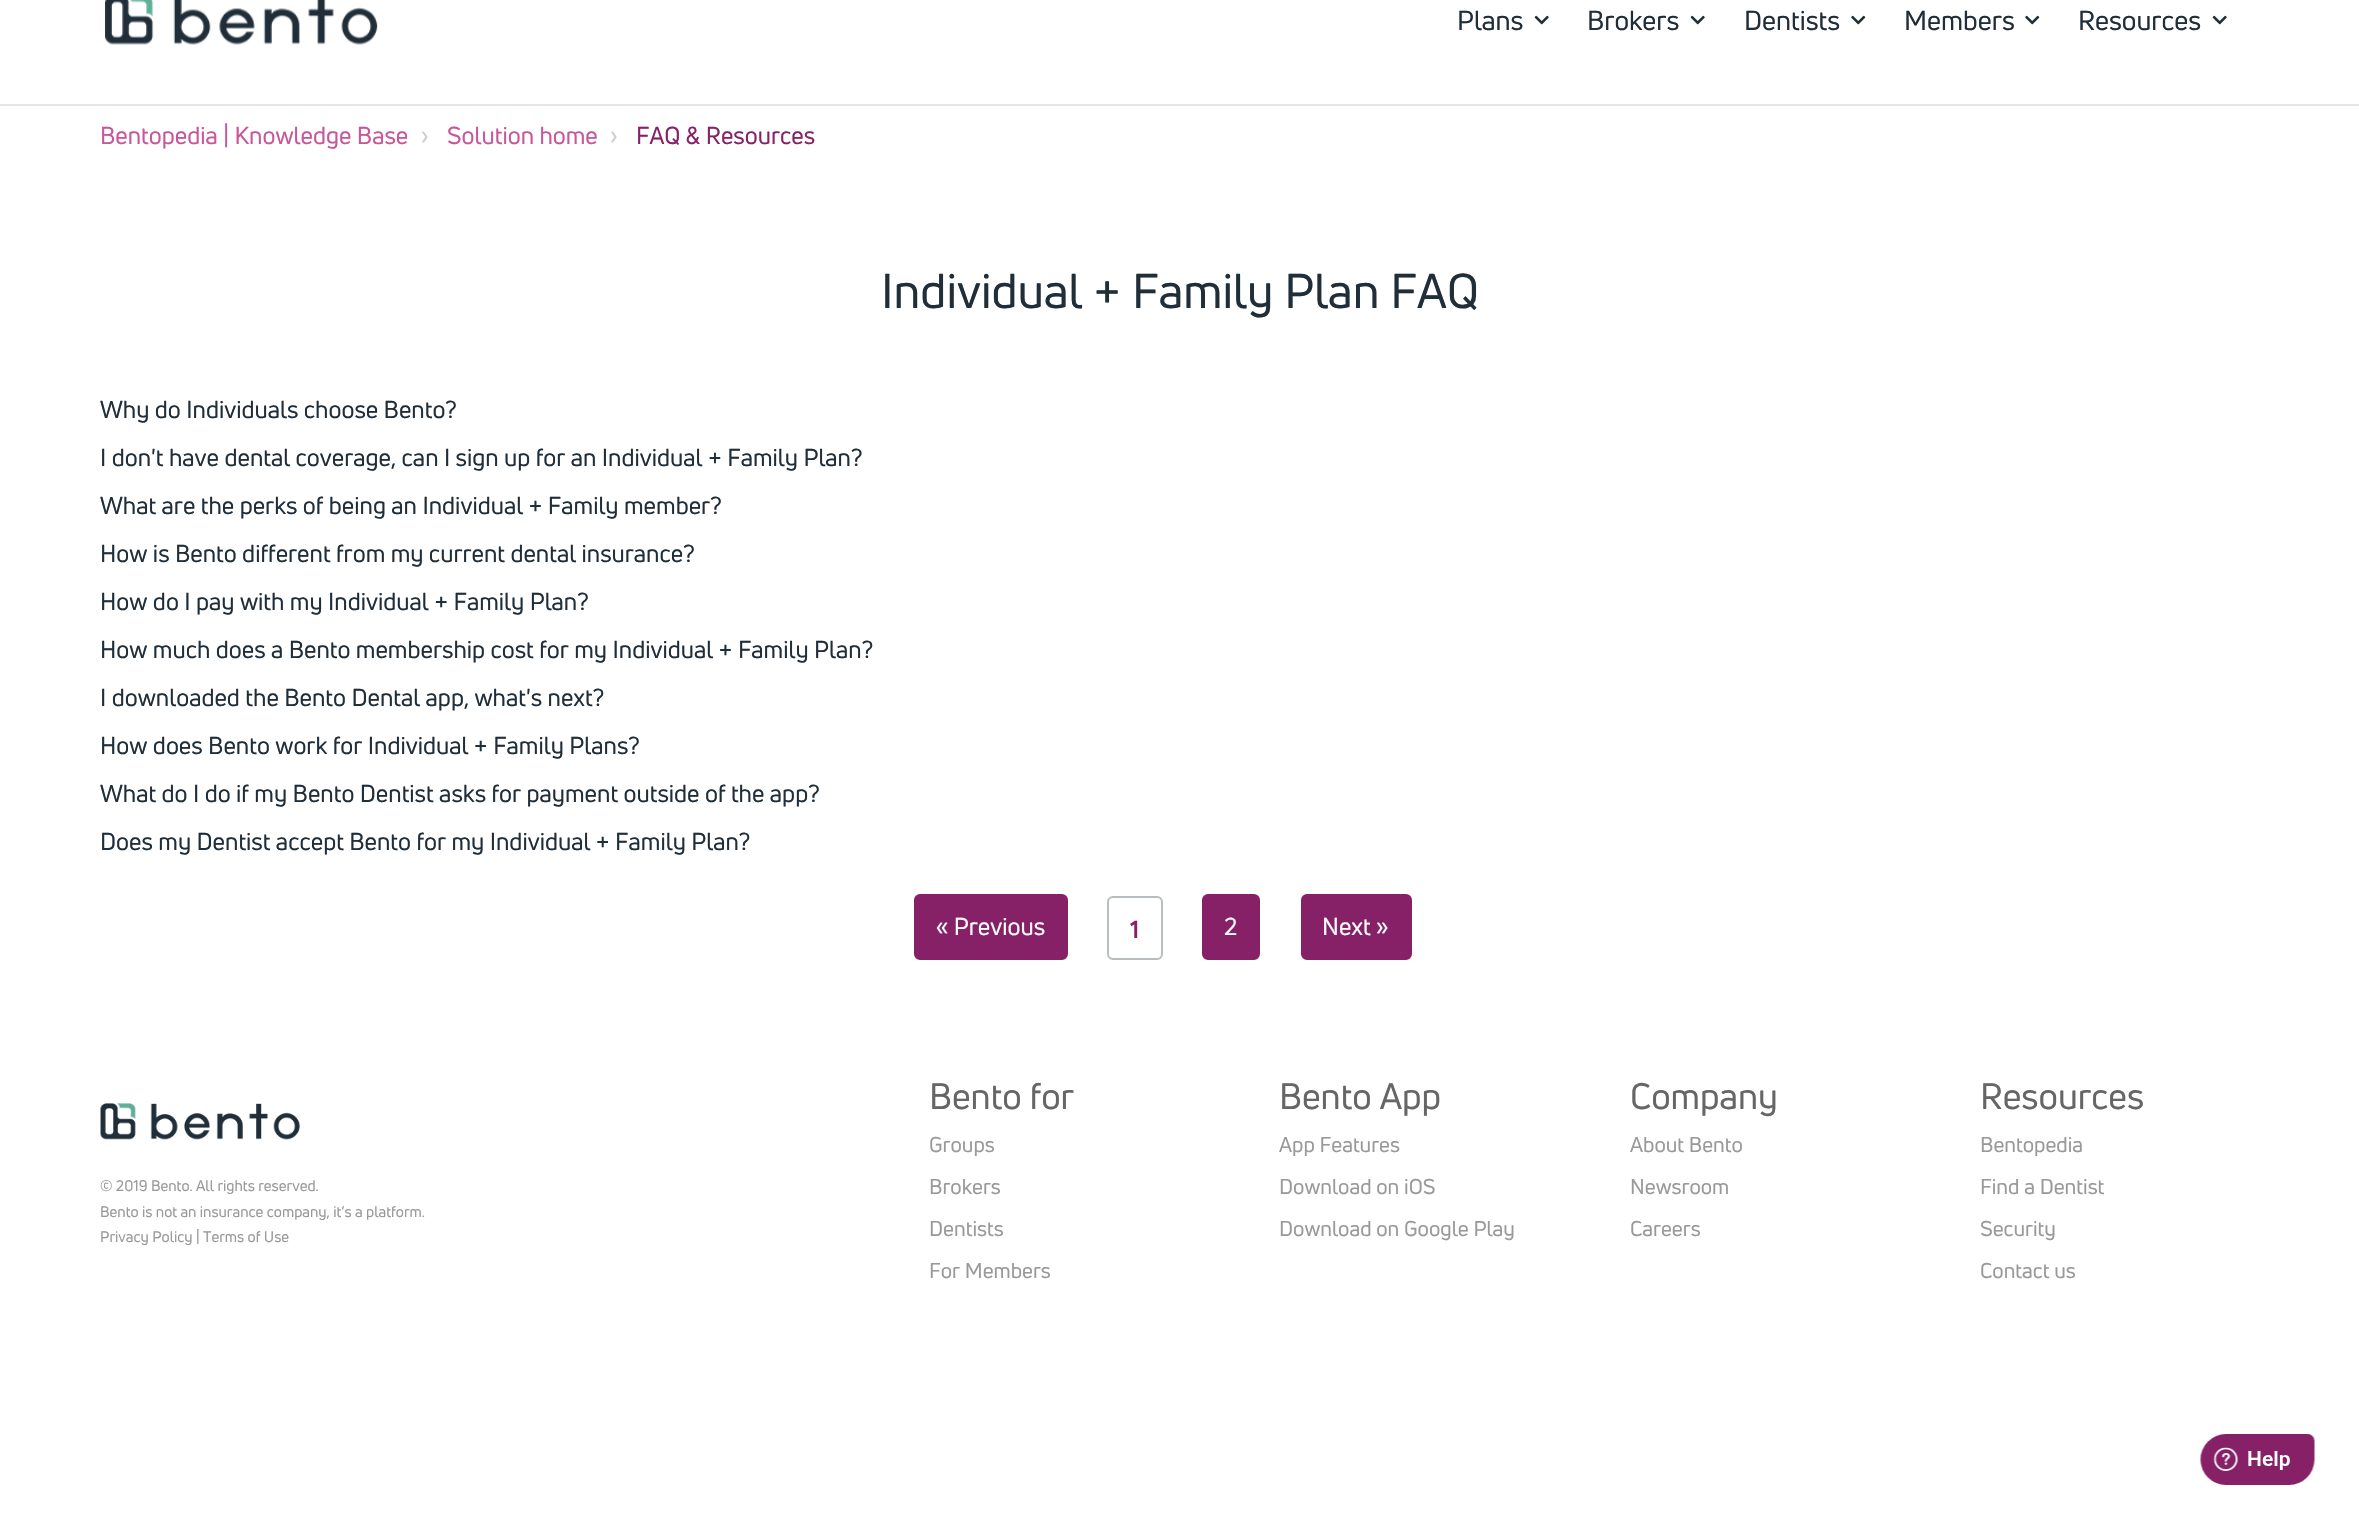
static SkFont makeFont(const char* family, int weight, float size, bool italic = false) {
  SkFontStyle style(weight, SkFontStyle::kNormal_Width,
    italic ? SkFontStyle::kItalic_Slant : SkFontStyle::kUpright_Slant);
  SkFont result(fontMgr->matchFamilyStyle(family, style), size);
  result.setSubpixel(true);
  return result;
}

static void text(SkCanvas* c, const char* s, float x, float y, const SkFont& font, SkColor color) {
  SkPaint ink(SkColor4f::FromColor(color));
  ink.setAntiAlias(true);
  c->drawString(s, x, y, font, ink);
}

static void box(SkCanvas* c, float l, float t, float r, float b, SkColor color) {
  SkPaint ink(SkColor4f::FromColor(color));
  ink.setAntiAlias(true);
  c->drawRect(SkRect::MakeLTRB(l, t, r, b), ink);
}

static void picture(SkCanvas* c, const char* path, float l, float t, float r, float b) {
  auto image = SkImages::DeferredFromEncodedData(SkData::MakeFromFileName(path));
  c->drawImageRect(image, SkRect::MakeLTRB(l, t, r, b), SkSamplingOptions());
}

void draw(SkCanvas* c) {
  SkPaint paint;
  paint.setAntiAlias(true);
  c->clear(0xffffffff);
  box(c, 0, 104, 2359, 106, 0xffe6e6e6);
  picture(c, "img_01.png", 105, 0, 378, 45);
  SkFont face1 = makeFont("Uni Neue", 400, 27);
  text(c, "Plans", 1457, 30, face1, 0xff202e3a);
  picture(c, "img_02.png", 1534, 15, 1549, 25);
  text(c, "Brokers", 1587, 30, face1, 0xff202e3a);
  picture(c, "img_02.png", 1690, 15, 1705, 25);
  text(c, "Dentists", 1744, 30, face1, 0xff202e3a);
  picture(c, "img_03.png", 1851, 15, 1866, 25);
  text(c, "Members", 1904, 30, face1, 0xff202e3a);
  picture(c, "img_03.png", 2025, 15, 2040, 25);
  text(c, "Resources", 2078, 30, face1, 0xff202e3a);
  picture(c, "img_02.png", 2212, 15, 2227, 25);
  SkFont face2 = makeFont("Uni Neue", 400, 24);
  text(c, "Bentopedia | Knowledge Base", 100, 144, face2, 0xffc7579a);
  text(c, "›", 421, 144, face2, 0xffcccccc);
  text(c, "Solution home", 447, 144, face2, 0xffc7579a);
  text(c, "›", 610, 144, face2, 0xffcccccc);
  text(c, "FAQ & Resources", 636, 144, face2, 0xff862168);
  SkFont face3 = makeFont("Uni Neue", 400, 48);
  text(c, "Individual + Family Plan FAQ", 881, 308, face3, 0xff202e3a);
  text(c, "Why do Individuals choose Bento?", 100, 418, face2, 0xff202e3a);
  text(c, "I don't have dental coverage, can I sign up for an Individual + Family Plan?", 100, 466, face2, 0xff202e3a);
  text(c, "What are the perks of being an Individual + Family member?", 100, 514, face2, 0xff202e3a);
  text(c, "How is Bento different from my current dental insurance?", 100, 562, face2, 0xff202e3a);
  text(c, "How do I pay with my Individual + Family Plan?", 100, 610, face2, 0xff202e3a);
  text(c, "How much does a Bento membership cost for my Individual + Family Plan?", 100, 658, face2, 0xff202e3a);
  text(c, "I downloaded the Bento Dental app, what's next?", 100, 706, face2, 0xff202e3a);
  text(c, "How does Bento work for Individual + Family Plans?", 100, 754, face2, 0xff202e3a);
  text(c, "What do I do if my Bento Dentist asks for payment outside of the app?", 100, 802, face2, 0xff202e3a);
  text(c, "Does my Dentist accept Bento for my Individual + Family Plan?", 100, 850, face2, 0xff202e3a);
  paint.setColor(0xff862168);
  c->drawRoundRect(SkRect::MakeLTRB(915, 895, 1067, 959), 5, 5, paint);
  paint.setStyle(SkPaint::kStroke_Style);
  paint.setStrokeWidth(2);
  c->drawRoundRect(SkRect::MakeLTRB(915, 895, 1067, 959), 5, 5, paint);
  text(c, "« Previous", 936, 935, face2, 0xffffffff);
  paint.setColor(0xffb7bdc1);
  c->drawRoundRect(SkRect::MakeLTRB(1108, 897, 1162, 959), 5, 5, paint);
  SkFont face4 = makeFont("Uni Neue", 700, 24);
  text(c, "1", 1130, 938, face4, 0xff862168);
  paint.setStyle(SkPaint::kFill_Style);
  paint.setColor(0xff862168);
  c->drawRoundRect(SkRect::MakeLTRB(1203, 895, 1259, 959), 5, 5, paint);
  paint.setStyle(SkPaint::kStroke_Style);
  c->drawRoundRect(SkRect::MakeLTRB(1203, 895, 1259, 959), 5, 5, paint);
  text(c, "2", 1224, 935, face2, 0xffffffff);
  paint.setStyle(SkPaint::kFill_Style);
  c->drawRoundRect(SkRect::MakeLTRB(1302, 895, 1411, 959), 5, 5, paint);
  paint.setStyle(SkPaint::kStroke_Style);
  c->drawRoundRect(SkRect::MakeLTRB(1302, 895, 1411, 959), 5, 5, paint);
  text(c, "Next »", 1322, 935, face2, 0xffffffff);
  picture(c, "img_04.png", 100, 1103, 300, 1140);
  SkFont face5 = makeFont("Uni Neue", 400, 15);
  text(c, "© 2019 Bento. All rights reserved.", 100, 1191, face5, 0xff999999);
  text(c, "Bento is not an insurance company, it’s a platform.", 100, 1217, face5, 0xff999999);
  text(c, "Privacy Policy | Terms of Use", 100, 1242, face5, 0xff999999);
  SkFont face6 = makeFont("Uni Neue", 400, 36);
  text(c, "Bento for", 929, 1109, face6, 0xff666666);
  SkFont face7 = makeFont("Uni Neue", 400, 21);
  text(c, "Groups", 929, 1152, face7, 0xff999999);
  text(c, "Brokers", 929, 1194, face7, 0xff999999);
  text(c, "Dentists", 929, 1236, face7, 0xff999999);
  text(c, "For Members", 929, 1278, face7, 0xff999999);
  text(c, "Bento App", 1279, 1109, face6, 0xff666666);
  text(c, "App Features", 1279, 1152, face7, 0xff999999);
  text(c, "Download on iOS", 1279, 1194, face7, 0xff999999);
  text(c, "Download on Google Play", 1279, 1236, face7, 0xff999999);
  text(c, "Company", 1630, 1109, face6, 0xff666666);
  text(c, "About Bento", 1630, 1152, face7, 0xff999999);
  text(c, "Newsroom", 1630, 1194, face7, 0xff999999);
  text(c, "Careers", 1630, 1236, face7, 0xff999999);
  text(c, "Resources", 1980, 1109, face6, 0xff666666);
  text(c, "Bentopedia", 1980, 1152, face7, 0xff999999);
  text(c, "Find a Dentist", 1980, 1194, face7, 0xff999999);
  text(c, "Security", 1980, 1236, face7, 0xff999999);
  text(c, "Contact us", 1980, 1278, face7, 0xff999999);
  picture(c, "img_05.png", 2200, 1434, 2315, 1485);
}
